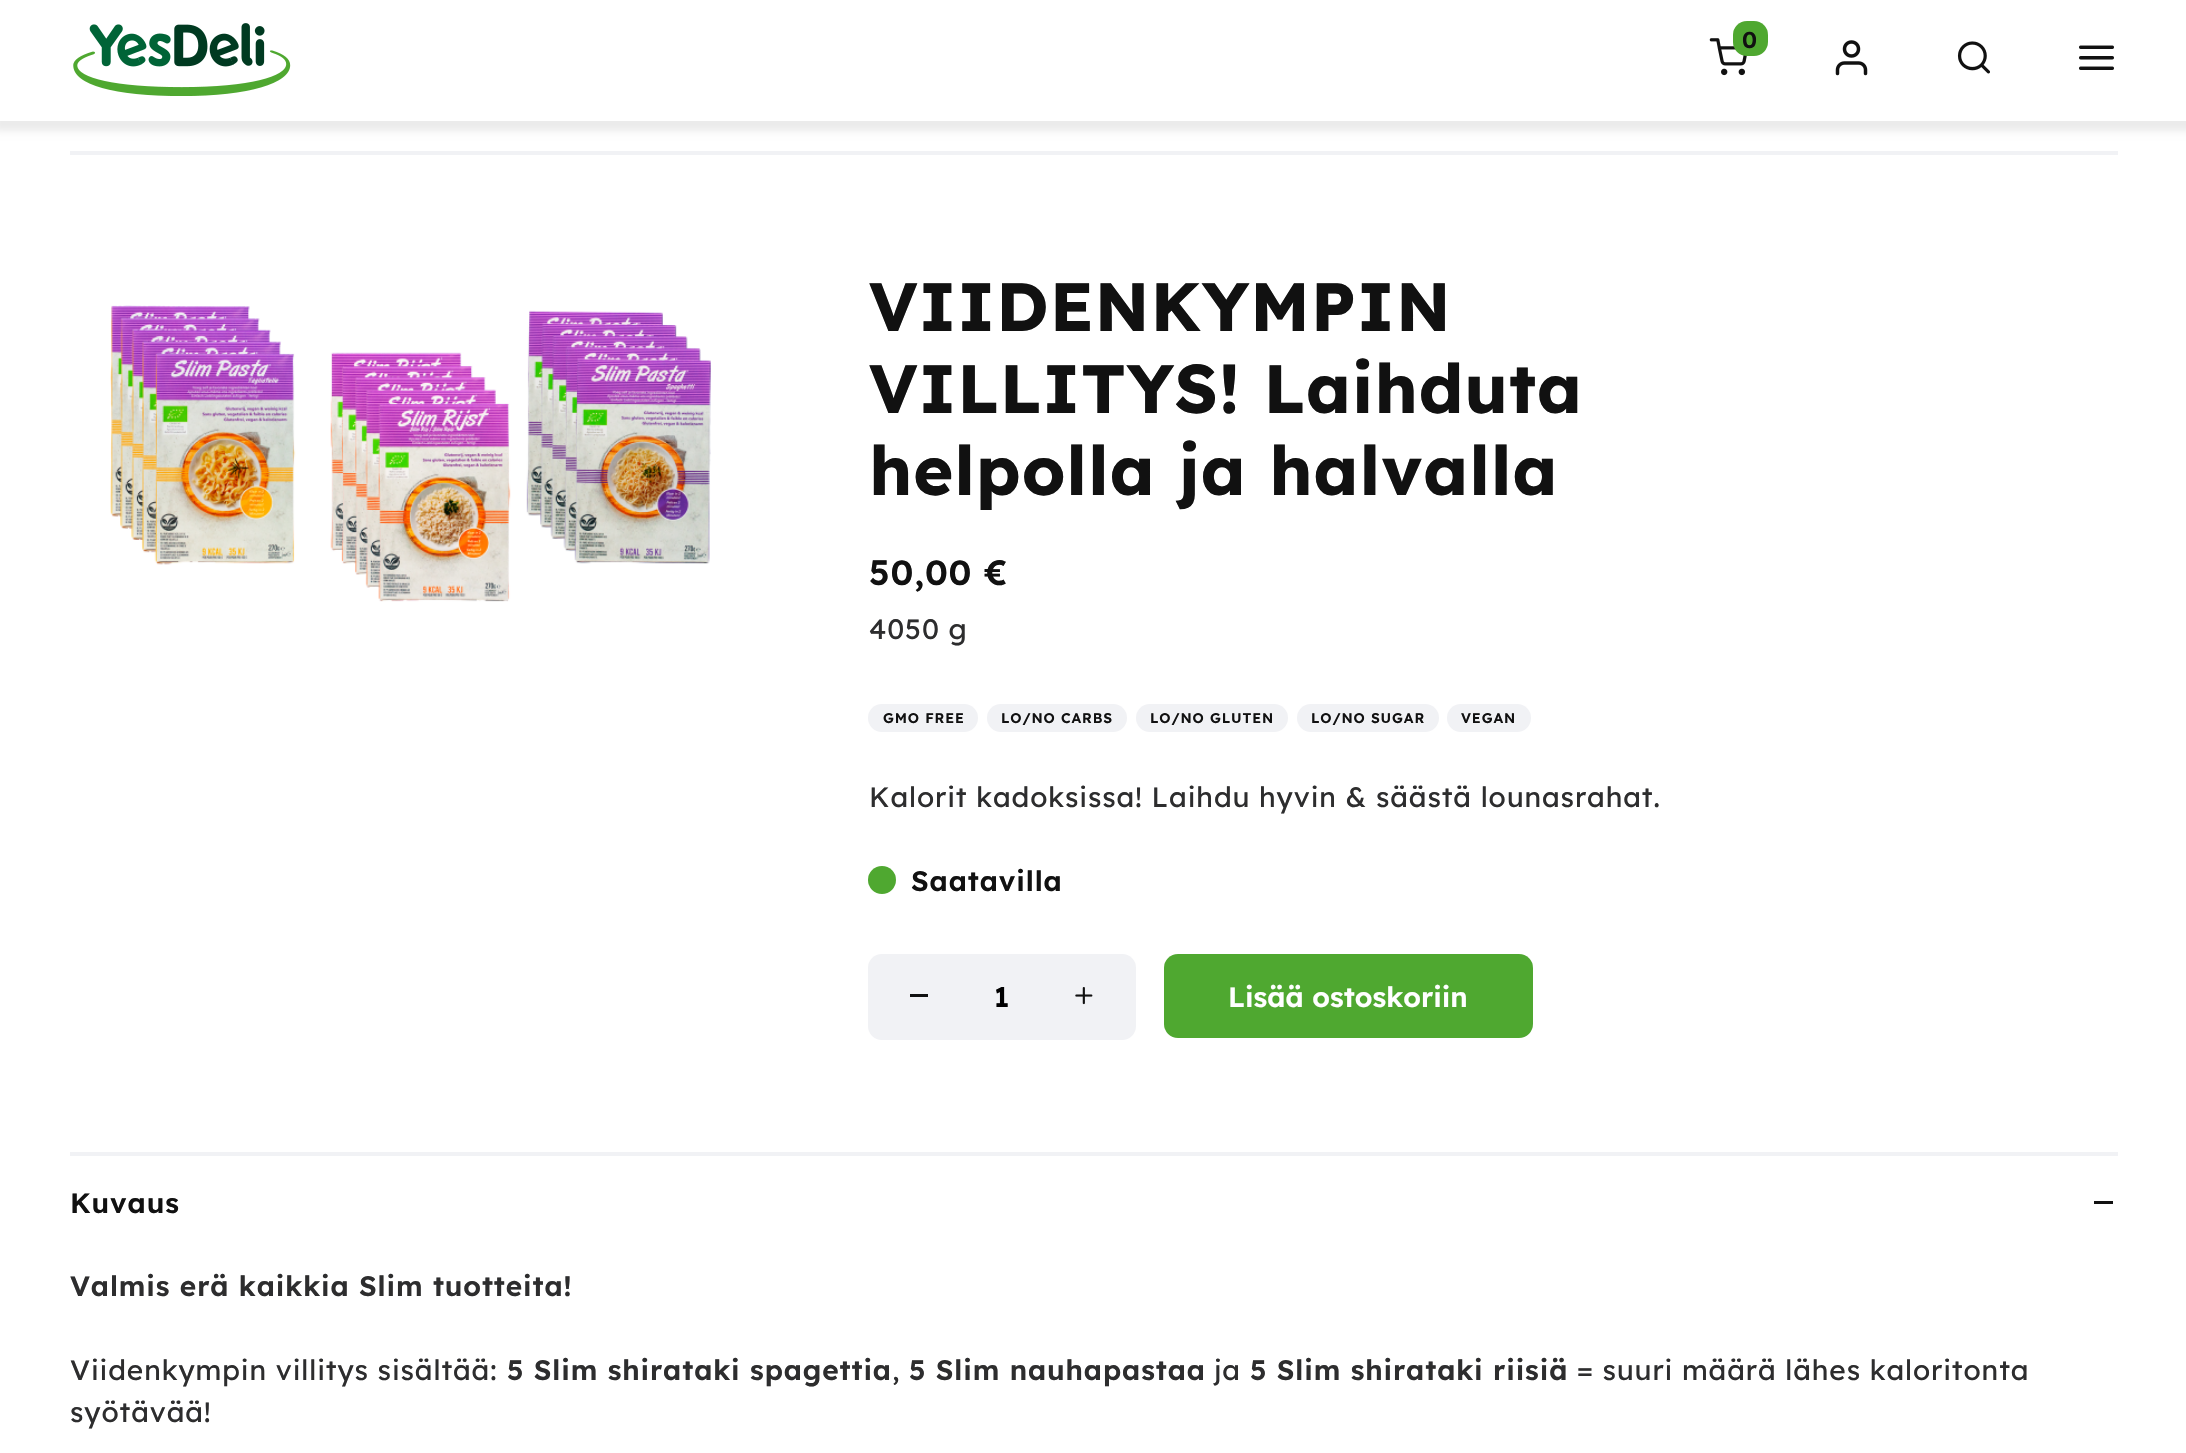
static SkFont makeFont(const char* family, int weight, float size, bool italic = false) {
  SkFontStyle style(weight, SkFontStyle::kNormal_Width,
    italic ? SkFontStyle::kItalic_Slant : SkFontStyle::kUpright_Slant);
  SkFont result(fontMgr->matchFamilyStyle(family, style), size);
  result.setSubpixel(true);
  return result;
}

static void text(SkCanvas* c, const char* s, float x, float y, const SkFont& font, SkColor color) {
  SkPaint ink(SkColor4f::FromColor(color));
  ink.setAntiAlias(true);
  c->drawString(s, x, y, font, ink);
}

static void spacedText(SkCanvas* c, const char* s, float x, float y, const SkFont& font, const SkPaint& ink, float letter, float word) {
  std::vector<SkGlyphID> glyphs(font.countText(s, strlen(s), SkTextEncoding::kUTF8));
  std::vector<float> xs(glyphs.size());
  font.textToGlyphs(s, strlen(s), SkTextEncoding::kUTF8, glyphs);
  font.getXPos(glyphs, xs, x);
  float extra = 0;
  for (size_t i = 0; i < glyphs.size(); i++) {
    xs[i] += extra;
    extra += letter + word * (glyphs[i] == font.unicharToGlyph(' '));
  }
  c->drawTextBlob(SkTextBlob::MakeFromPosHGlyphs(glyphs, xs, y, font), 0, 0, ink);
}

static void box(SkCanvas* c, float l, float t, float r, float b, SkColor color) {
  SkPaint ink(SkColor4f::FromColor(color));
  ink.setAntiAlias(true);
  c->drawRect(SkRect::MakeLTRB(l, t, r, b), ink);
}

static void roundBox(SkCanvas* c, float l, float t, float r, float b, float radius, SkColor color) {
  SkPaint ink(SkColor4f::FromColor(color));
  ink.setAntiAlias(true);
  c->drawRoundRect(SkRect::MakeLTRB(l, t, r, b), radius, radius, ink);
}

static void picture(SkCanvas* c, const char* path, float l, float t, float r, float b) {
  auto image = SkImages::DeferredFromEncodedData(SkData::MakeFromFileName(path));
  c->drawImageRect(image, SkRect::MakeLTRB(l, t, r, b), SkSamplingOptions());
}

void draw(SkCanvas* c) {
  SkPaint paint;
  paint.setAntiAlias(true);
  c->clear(0xffffffff);
  paint.setColor(0x14020202);
  paint.setMaskFilter(SkMaskFilter::MakeBlur(kNormal_SkBlurStyle, 3.5f));
  c->drawRect(SkRect::MakeLTRB(-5, -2, 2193, 131), paint);
  paint.setMaskFilter(nullptr);
  box(c, 0, 0, 2186, 121, 0xffffffff);
  picture(c, "img_01.png", 73, 23, 291, 96);
  picture(c, "img_02.png", 1709, 38, 1747, 76);
  roundBox(c, 1733, 21, 1768, 56, 14, 0xff4fa830);
  SkFont face1 = makeFont("Lexend", 600, 23);
  paint.setColor(0xff111111);
  spacedText(c, "0", 1742, 48, face1, paint, 0.88f, 0);
  picture(c, "img_03.png", 1835, 40, 1868, 76);
  picture(c, "img_04.png", 1957, 41, 1990, 74);
  picture(c, "img_05.png", 2079, 45, 2114, 70);
  box(c, 70, 151, 2118, 155, 0xfff1f2f5);
  picture(c, "img_06.png", 110, 305, 711, 602);
  SkFont face2 = makeFont("Lexend", 700, 68.3f);
  spacedText(c, "VIIDENKYMPIN", 869, 331, face2, paint, 0.88f, 0);
  spacedText(c, "VILLITYS! Laihduta", 869, 413, face2, paint, 0.88f, 0);
  spacedText(c, "helpolla ja halvalla", 869, 495, face2, paint, 0.88f, 0);
  SkFont face3 = makeFont("Lexend", 600, 35);
  spacedText(c, "50,00 €", 869, 585, face3, paint, 0.88f, 0);
  SkFont face4 = makeFont("Lexend", 400, 28);
  paint.setColor(0xff2d2d2e);
  spacedText(c, "4050 g", 869, 639, face4, paint, 0.88f, 0);
  roundBox(c, 868, 704, 978, 732, 14, 0xfff1f2f5);
  SkFont face5 = makeFont("Lexend", 600, 14);
  paint.setColor(0xff111111);
  spacedText(c, "GMO FREE", 883, 723, face5, paint, 0.88f, 0);
  roundBox(c, 987, 704, 1127, 732, 14, 0xfff1f2f5);
  spacedText(c, "LO/NO CARBS", 1001, 723, face5, paint, 0.88f, 0);
  roundBox(c, 1136, 704, 1288, 732, 14, 0xfff1f2f5);
  spacedText(c, "LO/NO GLUTEN", 1150, 723, face5, paint, 0.88f, 0);
  roundBox(c, 1297, 704, 1439, 732, 14, 0xfff1f2f5);
  spacedText(c, "LO/NO SUGAR", 1311, 723, face5, paint, 0.88f, 0);
  roundBox(c, 1447, 704, 1531, 732, 14, 0xfff1f2f5);
  spacedText(c, "VEGAN", 1461, 723, face5, paint, 0.88f, 0);
  paint.setColor(0xff2d2d2e);
  spacedText(c, "Kalorit kadoksissa! Laihdu hyvin & säästä lounasrahat.", 869, 807, face4, paint, 0.88f, 0);
  paint.setColor(0xff4fa830);
  c->drawCircle(882, 880, 14, paint);
  SkFont face6 = makeFont("Lexend", 600, 28);
  paint.setColor(0xff111111);
  spacedText(c, "Saatavilla", 911, 891, face6, paint, 0.88f, 0);
  roundBox(c, 868, 954, 1136, 1040, 14, 0xfff1f2f5);
  box(c, 910, 994, 928, 997, 0xff111111);
  text(c, "1", 994, 1007, face6, 0xff000000);
  picture(c, "img_07.png", 1075, 987, 1093, 1005);
  roundBox(c, 1164, 954, 1533, 1038, 14, 0xff4fa830);
  text(c, "Lisää ostoskoriin", 1228, 1007, face6, 0xffffffff);
  box(c, 70, 1152, 2118, 1156, 0xfff1f2f5);
  spacedText(c, "Kuvaus", 70, 1213, face6, paint, 0.88f, 0);
  box(c, 2094, 1201, 2113, 1204, 0xff111111);
  paint.setColor(0xff2d2d2e);
  spacedText(c, "Valmis erä kaikkia Slim tuotteita!", 70, 1296, face6, paint, 0.88f, 0);
  spacedText(c, "Viidenkympin villitys sisältää:", 70, 1380, face4, paint, 0.88f, 0);
  spacedText(c, "5 Slim shirataki spagettia", 507, 1380, face6, paint, 0.88f, 0);
  spacedText(c, ",", 892, 1380, face4, paint, 0.88f, 0);
  spacedText(c, "5 Slim nauhapastaa", 909, 1380, face6, paint, 0.88f, 0);
  spacedText(c, "ja", 1214, 1380, face4, paint, 0.88f, 0);
  spacedText(c, "5 Slim shirataki riisiä", 1250, 1380, face6, paint, 0.88f, 0);
  spacedText(c, "= suuri määrä lähes kaloritonta", 1577, 1380, face4, paint, 0.88f, 0);
  spacedText(c, "syötävää!", 70, 1422, face4, paint, 0.88f, 0);
}
